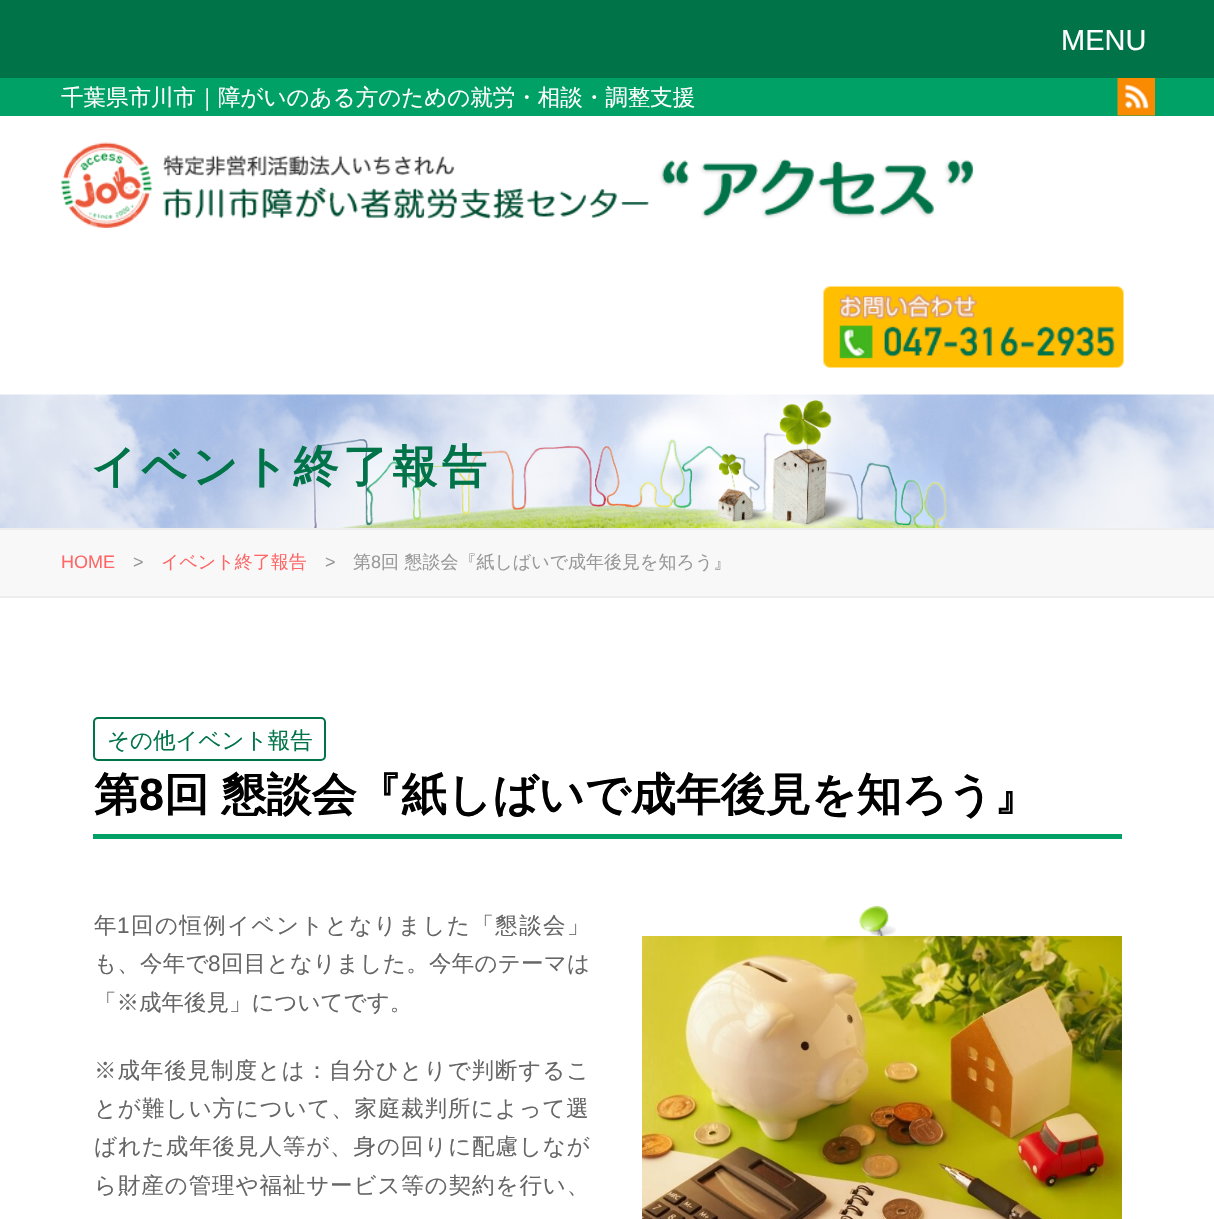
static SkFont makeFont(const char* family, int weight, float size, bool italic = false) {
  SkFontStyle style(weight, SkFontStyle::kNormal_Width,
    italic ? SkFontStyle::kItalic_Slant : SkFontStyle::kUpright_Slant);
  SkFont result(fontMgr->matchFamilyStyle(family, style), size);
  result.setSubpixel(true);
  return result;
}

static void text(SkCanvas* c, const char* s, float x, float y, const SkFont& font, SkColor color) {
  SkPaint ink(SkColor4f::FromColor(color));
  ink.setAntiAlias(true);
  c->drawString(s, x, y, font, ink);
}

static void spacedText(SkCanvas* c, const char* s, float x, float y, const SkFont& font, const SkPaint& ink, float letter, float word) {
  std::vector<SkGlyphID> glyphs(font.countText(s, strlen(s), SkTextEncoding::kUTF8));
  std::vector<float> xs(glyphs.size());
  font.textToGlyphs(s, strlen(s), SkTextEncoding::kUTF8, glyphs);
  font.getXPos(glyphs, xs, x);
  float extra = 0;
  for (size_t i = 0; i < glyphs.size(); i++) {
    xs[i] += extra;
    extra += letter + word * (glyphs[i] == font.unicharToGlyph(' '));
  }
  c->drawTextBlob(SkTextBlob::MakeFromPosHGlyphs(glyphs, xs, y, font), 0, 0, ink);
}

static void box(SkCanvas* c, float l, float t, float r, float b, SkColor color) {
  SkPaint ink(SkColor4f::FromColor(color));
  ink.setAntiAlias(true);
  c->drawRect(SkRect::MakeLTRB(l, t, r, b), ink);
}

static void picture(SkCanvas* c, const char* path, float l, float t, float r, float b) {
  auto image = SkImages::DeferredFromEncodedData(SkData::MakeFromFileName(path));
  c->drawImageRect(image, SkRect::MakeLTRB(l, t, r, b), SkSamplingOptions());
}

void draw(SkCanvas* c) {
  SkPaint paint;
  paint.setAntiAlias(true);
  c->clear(0xffffffff);
  box(c, 0, 0, 1214, 78, 0xff007349);
  SkFont face1 = makeFont("Liberation Sans", 400, 29);
  text(c, "MENU", 1061, 50, face1, 0xffffffff);
  box(c, 0, 78, 1214, 116, 0xff00a166);
  SkFont face2 = makeFont("WenQuanYi Zen Hei", 500, 22.5f);
  text(c, "千葉県市川市｜障がいのある方のための就労・相談・調整支援", 61, 105, face2, 0xffffffff);
  picture(c, "img_01.png", 1117, 78, 1155, 116);
  picture(c, "img_02.png", 61, 142, 974, 228);
  picture(c, "img_03.png", 823, 286, 1124, 368);
  picture(c, "img_04.png", 0, 394, 1214, 528);
  SkFont face3 = makeFont("WenQuanYi Zen Hei", 700, 45);
  paint.setColor(0xff007349);
  spacedText(c, "イベント終了報告", 91, 482, face3, paint, 4.5f, 0);
  box(c, 0, 530, 1214, 596, 0xfff8f8f8);
  box(c, 0, 528, 1214, 530, 0xffededed);
  box(c, 0, 596, 1214, 598, 0xffededed);
  SkFont face4 = makeFont("Liberation Sans", 400, 18);
  text(c, "HOME", 61, 568, face4, 0xffff6666);
  text(c, ">", 133, 568, face4, 0xff999999);
  SkFont face5 = makeFont("WenQuanYi Zen Hei", 500, 18);
  text(c, "イベント終了報告", 161, 568, face5, 0xffff6666);
  text(c, ">", 325, 568, face4, 0xff999999);
  text(c, "第", 353, 568, face5, 0xff999999);
  text(c, "8", 371, 568, face4, 0xff999999);
  text(c, "回 懇談会『紙しばいで成年後見を知ろう』", 381, 568, face5, 0xff999999);
  paint.setStyle(SkPaint::kStroke_Style);
  paint.setStrokeWidth(2);
  c->drawRoundRect(SkRect::MakeLTRB(94, 718, 325, 760), 4, 4, paint);
  text(c, "その他イベント報告", 107, 748, face2, 0xff007349);
  box(c, 93, 834, 1122, 839, 0xff00a166);
  text(c, "第", 94, 810, face3, 0xff000000);
  SkFont face6 = makeFont("Liberation Sans", 700, 45);
  text(c, "8", 139, 810, face6, 0xff000000);
  paint.setStyle(SkPaint::kFill_Style);
  paint.setColor(0xff000000);
  spacedText(c, "回 懇談会『紙しばいで成年後見を知ろう』", 164, 810, face3, paint, 0, -1);
  paint.setColor(0xff666666);
  spacedText(c, "年", 94, 933, face2, paint, 1.4f, 0);
  SkFont face7 = makeFont("Liberation Sans", 400, 22.5f);
  spacedText(c, "1", 117, 933, face7, paint, 1.4f, 0);
  spacedText(c, "回の恒例イベントとなりました「懇談会」", 131, 933, face2, paint, 1.4f, 0);
  spacedText(c, "も、今年で", 94, 971, face2, paint, 0.25f, 0);
  spacedText(c, "8", 208, 971, face7, paint, 0.25f, 0);
  spacedText(c, "回目となりました。今年のテーマは", 221, 971, face2, paint, 0.25f, 0);
  text(c, "「※成年後見」についてです。", 94, 1010, face2, 0xff666666);
  picture(c, "img_05.png", 642, 906, 1122, 1219);
  spacedText(c, "※成年後見制度とは：自分ひとりで判断するこ", 94, 1078, face2, paint, 0.9f, 0);
  spacedText(c, "とが難しい方について、家庭裁判所によって選", 94, 1116, face2, paint, 0.8f, 0);
  spacedText(c, "ばれた成年後見人等が、身の回りに配慮しなが", 94, 1154, face2, paint, 0.9f, 0);
  spacedText(c, "ら財産の管理や福祉サービス等の契約を行い、", 94, 1193, face2, paint, 0.9f, 0);
}
